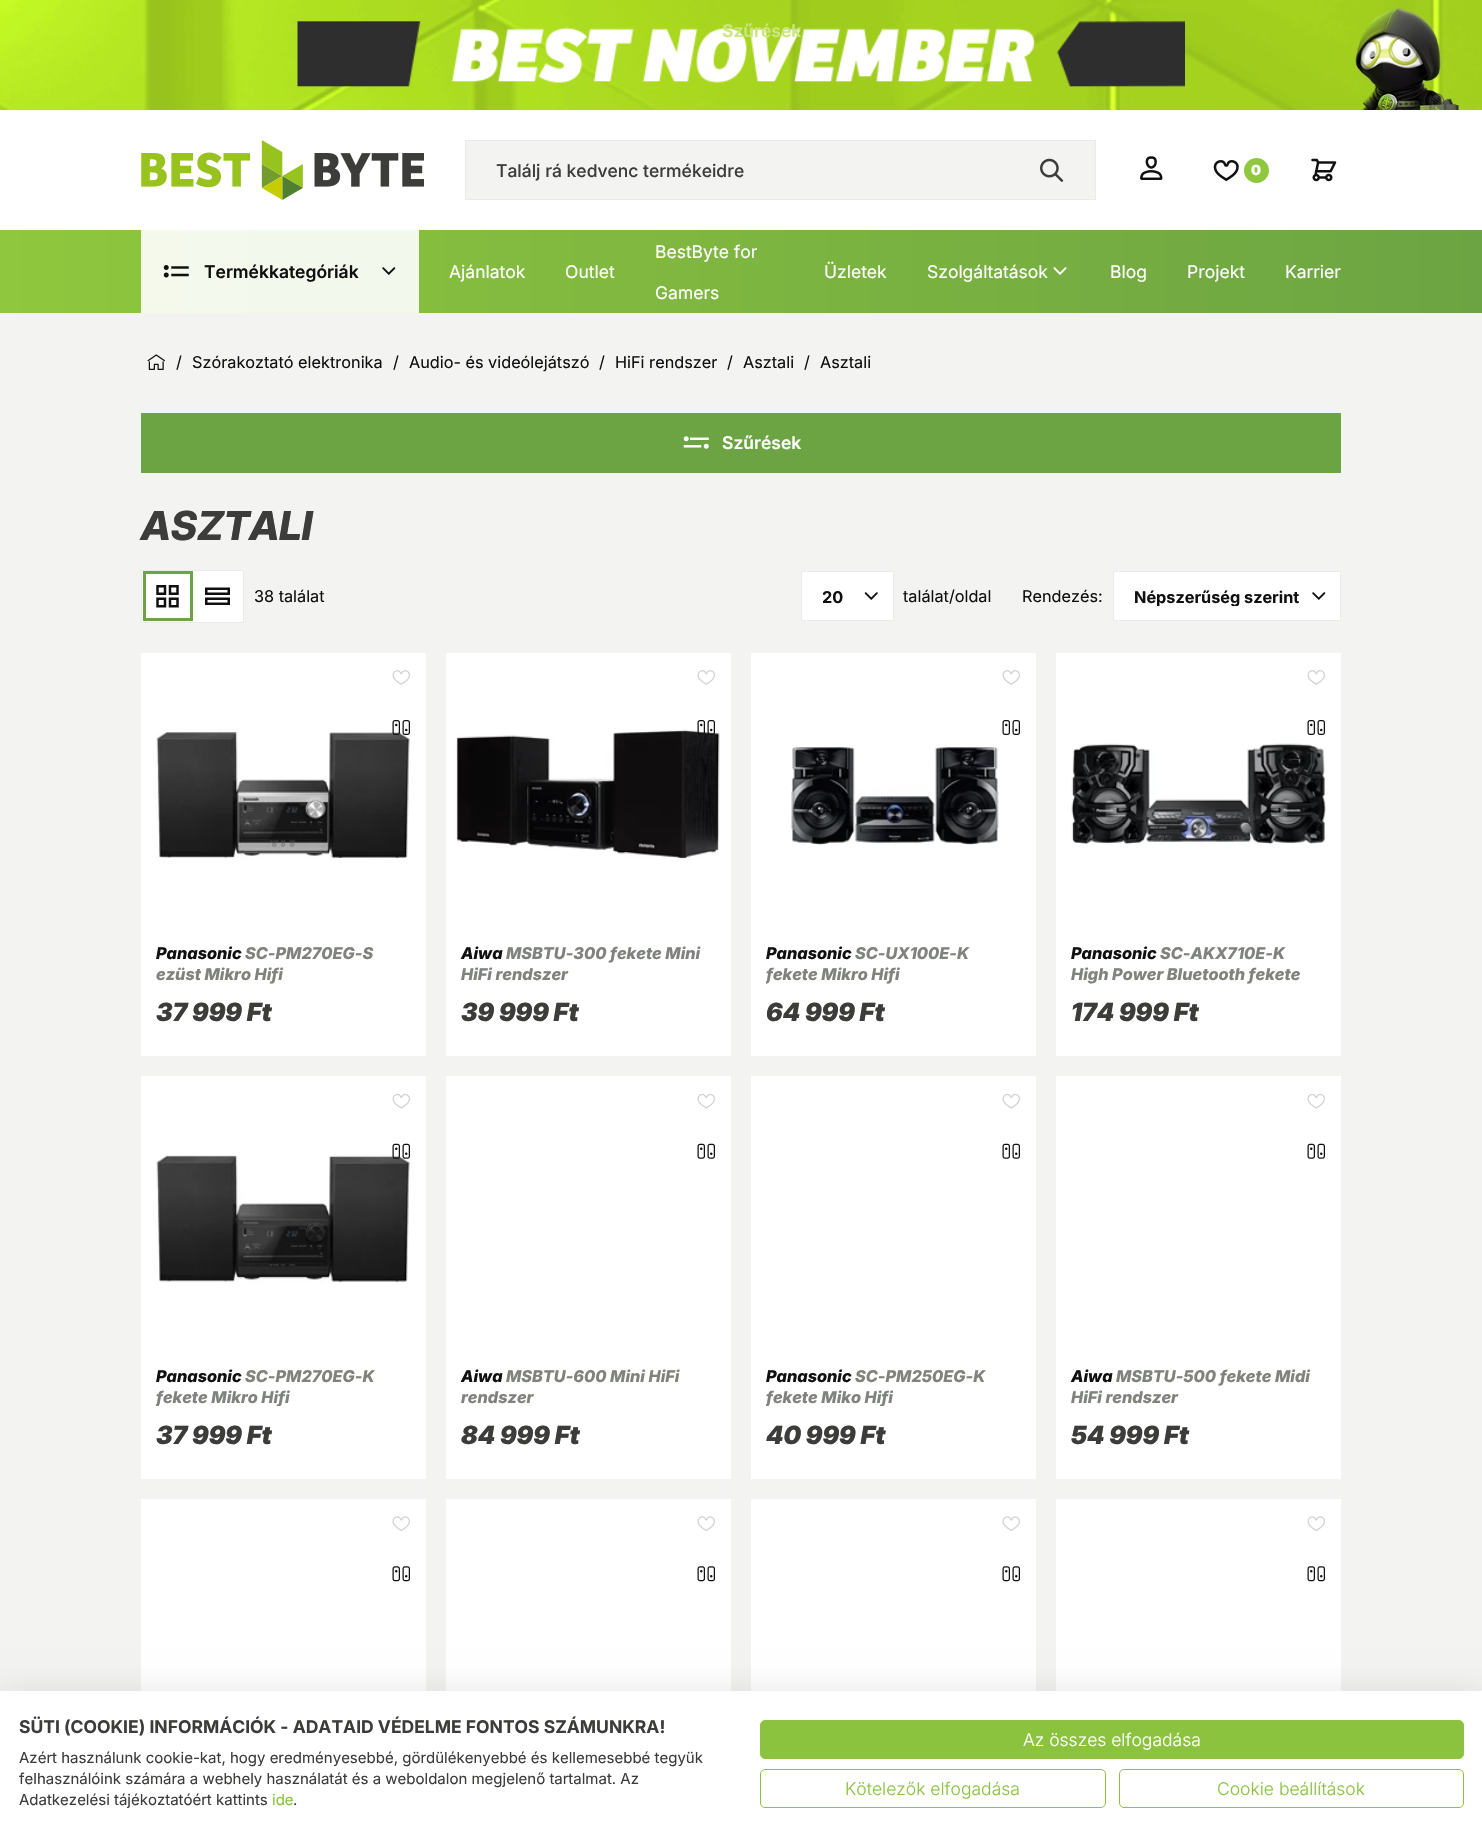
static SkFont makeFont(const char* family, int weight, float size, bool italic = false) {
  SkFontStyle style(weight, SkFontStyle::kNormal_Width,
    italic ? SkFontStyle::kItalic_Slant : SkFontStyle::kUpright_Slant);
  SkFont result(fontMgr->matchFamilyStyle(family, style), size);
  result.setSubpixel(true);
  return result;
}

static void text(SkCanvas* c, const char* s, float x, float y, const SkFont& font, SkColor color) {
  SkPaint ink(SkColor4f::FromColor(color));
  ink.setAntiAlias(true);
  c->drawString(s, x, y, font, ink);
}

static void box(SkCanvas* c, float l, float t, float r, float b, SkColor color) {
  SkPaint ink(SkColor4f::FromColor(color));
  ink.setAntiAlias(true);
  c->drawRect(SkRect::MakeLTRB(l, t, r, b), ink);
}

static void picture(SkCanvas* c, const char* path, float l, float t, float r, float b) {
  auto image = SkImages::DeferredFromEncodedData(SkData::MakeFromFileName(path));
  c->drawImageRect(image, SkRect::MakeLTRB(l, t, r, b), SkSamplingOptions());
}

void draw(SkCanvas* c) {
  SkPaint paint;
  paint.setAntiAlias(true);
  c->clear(0xfff3f3f2);
  picture(c, "img_01.png", 0, 0, 1482, 110);
  picture(c, "img_02.png", 297, 21, 1185, 87);
  SkFont face1 = makeFont("Inter", 600, 17.5f);
  text(c, "Szűrések", 722, 37, face1, 0xffcce680);
  box(c, 141, 413, 1341, 473, 0xff6ca443);
  picture(c, "img_03.png", 683, 436, 709, 449);
  text(c, "Szűrések", 722, 449, face1, 0xffffffff);
  SkFont face2 = makeFont("Inter", 800, 40, true);
  text(c, "ASZTALI", 141, 540, face2, 0xff3c3c3b);
  paint.setColor(0xffffffff);
  c->drawRect(SkRect::MakeLTRB(141.5f, 570.5f, 243.5f, 622.5f), paint);
  paint.setStyle(SkPaint::kStroke_Style);
  paint.setStrokeWidth(1);
  paint.setColor(0xffeaeaea);
  c->drawRect(SkRect::MakeLTRB(141.5f, 570.5f, 243.5f, 622.5f), paint);
  paint.setStrokeWidth(3);
  paint.setColor(0xff6ca443);
  c->drawRect(SkRect::MakeLTRB(144.5f, 572.5f, 191.5f, 619.5f), paint);
  picture(c, "img_04.png", 156, 585, 179, 608);
  picture(c, "img_05.png", 205, 587, 230, 605);
  SkFont face3 = makeFont("Inter", 400, 16.25f);
  text(c, "38 találat", 254, 602, face3, 0xff101010);
  paint.setStyle(SkPaint::kFill_Style);
  paint.setColor(0xffffffff);
  c->drawRect(SkRect::MakeLTRB(801.5f, 571.5f, 893.5f, 620.5f), paint);
  paint.setStyle(SkPaint::kStroke_Style);
  paint.setStrokeWidth(1);
  paint.setColor(0xffeaeaea);
  c->drawRect(SkRect::MakeLTRB(801.5f, 571.5f, 893.5f, 620.5f), paint);
  SkFont face4 = makeFont("Inter", 700, 16.25f);
  text(c, "20", 822, 603, face4, 0xff101010);
  picture(c, "img_06.png", 864, 592, 878, 600);
  text(c, "találat/oldal", 903, 602, face3, 0xff101010);
  text(c, "Rendezés:", 1022, 602, face3, 0xff101010);
  paint.setStyle(SkPaint::kFill_Style);
  paint.setColor(0xffffffff);
  c->drawRect(SkRect::MakeLTRB(1113.5f, 571.5f, 1340.5f, 620.5f), paint);
  paint.setStyle(SkPaint::kStroke_Style);
  paint.setColor(0xffeaeaea);
  c->drawRect(SkRect::MakeLTRB(1113.5f, 571.5f, 1340.5f, 620.5f), paint);
  c->save();
  c->clipRect(SkRect::MakeLTRB(1134, 586, 1300, 606));
  text(c, "Népszerűség szerint", 1134, 603, face4, 0xff101010);
  c->restore();
  picture(c, "img_07.png", 1312, 592, 1326, 600);
  box(c, 141, 653, 426, 1056, 0xffffffff);
  picture(c, "img_08.png", 392, 670, 410, 685);
  picture(c, "img_10.png", 156, 732, 410, 859);
  picture(c, "img_09.png", 392, 720, 410, 735);
  SkFont face5 = makeFont("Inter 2", 800, 16.25f, true);
  text(c, "Panasonic", 156, 959, face5, 0xff101010);
  text(c, "SC-PM270EG-S", 245, 959, face5, 0xff80827d);
  text(c, "ezüst Mikro Hifi", 156, 980, face5, 0xff80827d);
  SkFont face6 = makeFont("Inter", 900, 25, true);
  text(c, "37 999 Ft", 156, 1021, face6, 0xff3c3c3b);
  box(c, 446, 653, 731, 1056, 0xffffffff);
  picture(c, "img_08.png", 697, 670, 715, 685);
  picture(c, "img_12.png", 456, 729, 720, 860);
  picture(c, "img_11.png", 697, 720, 715, 735);
  text(c, "Aiwa", 461, 959, face5, 0xff101010);
  text(c, "MSBTU-300 fekete Mini", 506, 959, face5, 0xff80827d);
  text(c, "HiFi rendszer", 461, 980, face5, 0xff80827d);
  text(c, "39 999 Ft", 461, 1021, face6, 0xff3c3c3b);
  box(c, 751, 653, 1036, 1056, 0xffffffff);
  picture(c, "img_08.png", 1002, 670, 1020, 685);
  picture(c, "img_13.png", 1002, 720, 1020, 735);
  picture(c, "img_14.png", 791, 747, 1000, 846);
  text(c, "Panasonic", 766, 959, face5, 0xff101010);
  text(c, "SC-UX100E-K", 855, 959, face5, 0xff80827d);
  c->save();
  c->clipRect(SkRect::MakeLTRB(766, 943, 1021, 984));
  text(c, "fekete Mikro Hifi", 766, 980, face5, 0xff80827d);
  c->restore();
  text(c, "64 999 Ft", 766, 1021, face6, 0xff3c3c3b);
  box(c, 1056, 653, 1341, 1056, 0xffffffff);
  picture(c, "img_08.png", 1307, 670, 1325, 685);
  picture(c, "img_13.png", 1307, 720, 1325, 735);
  picture(c, "img_15.png", 1071, 743, 1328, 845);
  text(c, "Panasonic", 1071, 959, face5, 0xff101010);
  text(c, "SC-AKX710E-K", 1160, 959, face5, 0xff80827d);
  text(c, "High Power Bluetooth fekete", 1071, 980, face5, 0xff80827d);
  text(c, "174 999 Ft", 1071, 1021, face6, 0xff3c3c3b);
  box(c, 141, 1076, 426, 1479, 0xffffffff);
  picture(c, "img_16.png", 392, 1093, 410, 1109);
  picture(c, "img_18.png", 156, 1155, 413, 1283);
  picture(c, "img_17.png", 392, 1143, 410, 1159);
  text(c, "Panasonic", 156, 1382, face5, 0xff101010);
  text(c, "SC-PM270EG-K", 245, 1382, face5, 0xff80827d);
  c->save();
  c->clipRect(SkRect::MakeLTRB(156, 1366, 411, 1406));
  text(c, "fekete Mikro Hifi", 156, 1403, face5, 0xff80827d);
  c->restore();
  text(c, "37 999 Ft", 156, 1444, face6, 0xff3c3c3b);
  box(c, 446, 1076, 731, 1479, 0xffffffff);
  picture(c, "img_16.png", 697, 1093, 715, 1109);
  picture(c, "img_19.png", 697, 1143, 715, 1159);
  text(c, "Aiwa", 461, 1382, face5, 0xff101010);
  text(c, "MSBTU-600 Mini HiFi", 506, 1382, face5, 0xff80827d);
  text(c, "rendszer", 461, 1403, face5, 0xff80827d);
  text(c, "84 999 Ft", 461, 1444, face6, 0xff3c3c3b);
  box(c, 751, 1076, 1036, 1479, 0xffffffff);
  picture(c, "img_16.png", 1002, 1093, 1020, 1109);
  picture(c, "img_19.png", 1002, 1143, 1020, 1159);
  text(c, "Panasonic", 766, 1382, face5, 0xff101010);
  text(c, "SC-PM250EG-K", 855, 1382, face5, 0xff80827d);
  c->save();
  c->clipRect(SkRect::MakeLTRB(766, 1366, 1021, 1406));
  text(c, "fekete Miko Hifi", 766, 1403, face5, 0xff80827d);
  c->restore();
  text(c, "40 999 Ft", 766, 1444, face6, 0xff3c3c3b);
  box(c, 1056, 1076, 1341, 1479, 0xffffffff);
  picture(c, "img_16.png", 1307, 1093, 1325, 1109);
  picture(c, "img_19.png", 1307, 1143, 1325, 1159);
  text(c, "Aiwa", 1071, 1382, face5, 0xff101010);
  text(c, "MSBTU-500 fekete Midi", 1116, 1382, face5, 0xff80827d);
  text(c, "HiFi rendszer", 1071, 1403, face5, 0xff80827d);
  text(c, "54 999 Ft", 1071, 1444, face6, 0xff3c3c3b);
  box(c, 141, 1499, 426, 1691, 0xffffffff);
  picture(c, "img_20.png", 392, 1516, 410, 1531);
  picture(c, "img_21.png", 392, 1566, 410, 1582);
  box(c, 446, 1499, 731, 1691, 0xffffffff);
  picture(c, "img_20.png", 697, 1516, 715, 1531);
  picture(c, "img_21.png", 697, 1566, 715, 1582);
  box(c, 751, 1499, 1036, 1691, 0xffffffff);
  picture(c, "img_20.png", 1002, 1516, 1020, 1531);
  picture(c, "img_21.png", 1002, 1566, 1020, 1582);
  box(c, 1056, 1499, 1341, 1691, 0xffffffff);
  picture(c, "img_20.png", 1307, 1516, 1325, 1531);
  picture(c, "img_21.png", 1307, 1566, 1325, 1582);
  picture(c, "img_22.png", 147, 354, 165, 370);
  text(c, "/", 176, 368, face3, 0xff101010);
  text(c, "Szórakoztató elektronika", 192, 368, face3, 0xff101010);
  text(c, "/", 393, 368, face3, 0xff101010);
  text(c, "Audio- és videólejátszó", 409, 368, face3, 0xff101010);
  text(c, "/", 599, 368, face3, 0xff101010);
  text(c, "HiFi rendszer", 615, 368, face3, 0xff101010);
  text(c, "/", 727, 368, face3, 0xff101010);
  text(c, "Asztali", 743, 368, face3, 0xff101010);
  text(c, "/", 804, 368, face3, 0xff101010);
  text(c, "Asztali", 820, 368, face3, 0xff101010);
  box(c, 0, 110, 1482, 230, 0xffffffff);
  picture(c, "img_23.png", 141, 140, 424, 200);
  paint.setStyle(SkPaint::kFill_Style);
  paint.setColor(0xfff3f3f2);
  c->drawRect(SkRect::MakeLTRB(465.5f, 140.5f, 1095.5f, 199.5f), paint);
  paint.setStyle(SkPaint::kStroke_Style);
  paint.setColor(0xffeaeaea);
  c->drawRect(SkRect::MakeLTRB(465.5f, 140.5f, 1095.5f, 199.5f), paint);
  SkFont face7 = makeFont("Inter", 500, 17.5f);
  text(c, "Találj rá kedvenc termékeidre", 496, 177, face7, 0xff3c3c3b);
  picture(c, "img_24.png", 1040, 158, 1064, 182);
  picture(c, "img_25.png", 1140, 156, 1163, 180);
  picture(c, "img_26.png", 1213, 160, 1239, 182);
  paint.setStyle(SkPaint::kFill_Style);
  paint.setColor(0xff8fc73e);
  c->drawCircle(1256.5f, 170.5f, 12.5f, paint);
  SkFont face8 = makeFont("Inter", 900, 14);
  text(c, "0", 1251, 175, face8, 0xffffffff);
  picture(c, "img_27.png", 1311, 158, 1337, 182);
  {
    const SkColor colors[] = {0xff8fc73e, 0xff6ca443};
    const float stops[] = {0, 1};
    const SkPoint ends[] = {{0, 271}, {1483, 271}};
    paint.setShader(SkGradientShader::MakeLinear(ends, colors, stops, 2, SkTileMode::kClamp));
    paint.setAlpha(255);
  }
  c->drawRect(SkRect::MakeLTRB(0, 230, 1482, 313), paint);
  {
    const SkColor colors[] = {0xfff4f9ec, 0xfff0f6ec};
    const float stops[] = {0, 1};
    const SkPoint ends[] = {{0, 271}, {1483, 271}};
    paint.setShader(SkGradientShader::MakeLinear(ends, colors, stops, 2, SkTileMode::kClamp));
    paint.setAlpha(255);
  }
  c->drawRect(SkRect::MakeLTRB(141, 230, 419, 313), paint);
  picture(c, "img_28.png", 163, 265, 189, 278);
  text(c, "Termékkategóriák", 204, 278, face1, 0xff101010);
  picture(c, "img_29.png", 382, 267, 396, 275);
  SkFont face9 = makeFont("Inter", 400, 17.5f);
  text(c, "Ajánlatok", 449, 278, face9, 0xffffffff);
  text(c, "Outlet", 565, 278, face9, 0xffffffff);
  text(c, "BestByte for", 655, 258, face9, 0xffffffff);
  text(c, "Gamers", 655, 299, face9, 0xffffffff);
  text(c, "Üzletek", 824, 278, face9, 0xffffffff);
  text(c, "Szolgáltatások", 927, 278, face9, 0xffffffff);
  picture(c, "img_30.png", 1053, 267, 1067, 275);
  text(c, "Blog", 1110, 278, face9, 0xffffffff);
  text(c, "Projekt", 1187, 278, face9, 0xffffffff);
  text(c, "Karrier", 1285, 278, face9, 0xffffffff);
  paint.setShader(nullptr);
  paint.setColor(0x1a000000);
  paint.setMaskFilter(SkMaskFilter::MakeBlur(kNormal_SkBlurStyle, 15));
  c->drawRect(SkRect::MakeLTRB(0, 1691, 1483, 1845), paint);
  paint.setMaskFilter(nullptr);
  box(c, 0, 1691, 1482, 1844, 0xffffffff);
  SkFont face10 = makeFont("Inter", 700, 17.5f);
  text(c, "SÜTI (COOKIE) INFORMÁCIÓK - ADATAID VÉDELME FONTOS SZÁMUNKRA!", 19, 1733, face10, 0xff3c3c3b);
  SkFont face11 = makeFont("Inter", 400, 15);
  text(c, "Azért használunk cookie-kat, hogy eredményesebbé, gördülékenyebbé és kellemesebbé tegyük", 19, 1763, face11, 0xff3c3c3b);
  text(c, "felhasználóink számára a webhely használatát és a weboldalon megjelenő tartalmat. Az", 19, 1784, face11, 0xff3c3c3b);
  text(c, "Adatkezelési tájékoztatóért kattints", 19, 1805, face11, 0xff3c3c3b);
  text(c, "ide", 272, 1805, face11, 0xff8bc33f);
  text(c, ".", 293, 1805, face11, 0xff3c3c3b);
  paint.setColor(0xff8bc33f);
  c->drawRoundRect(SkRect::MakeLTRB(760.5f, 1720.5f, 1463.5f, 1758.5f), 4.5f, 4.5f, paint);
  paint.setStyle(SkPaint::kStroke_Style);
  c->drawRoundRect(SkRect::MakeLTRB(760.5f, 1720.5f, 1463.5f, 1758.5f), 4.5f, 4.5f, paint);
  SkFont face12 = makeFont("Inter", 300, 17.5f);
  text(c, "Az összes elfogadása", 1023, 1746, face12, 0xffffffff);
  c->drawRoundRect(SkRect::MakeLTRB(760.5f, 1769.5f, 1105.5f, 1807.5f), 4.5f, 4.5f, paint);
  text(c, "Kötelezők elfogadása", 845, 1795, face12, 0xff8bc33f);
  c->drawRoundRect(SkRect::MakeLTRB(1119.5f, 1769.5f, 1463.5f, 1807.5f), 4.5f, 4.5f, paint);
  text(c, "Cookie beállítások", 1217, 1795, face12, 0xff8bc33f);
}
